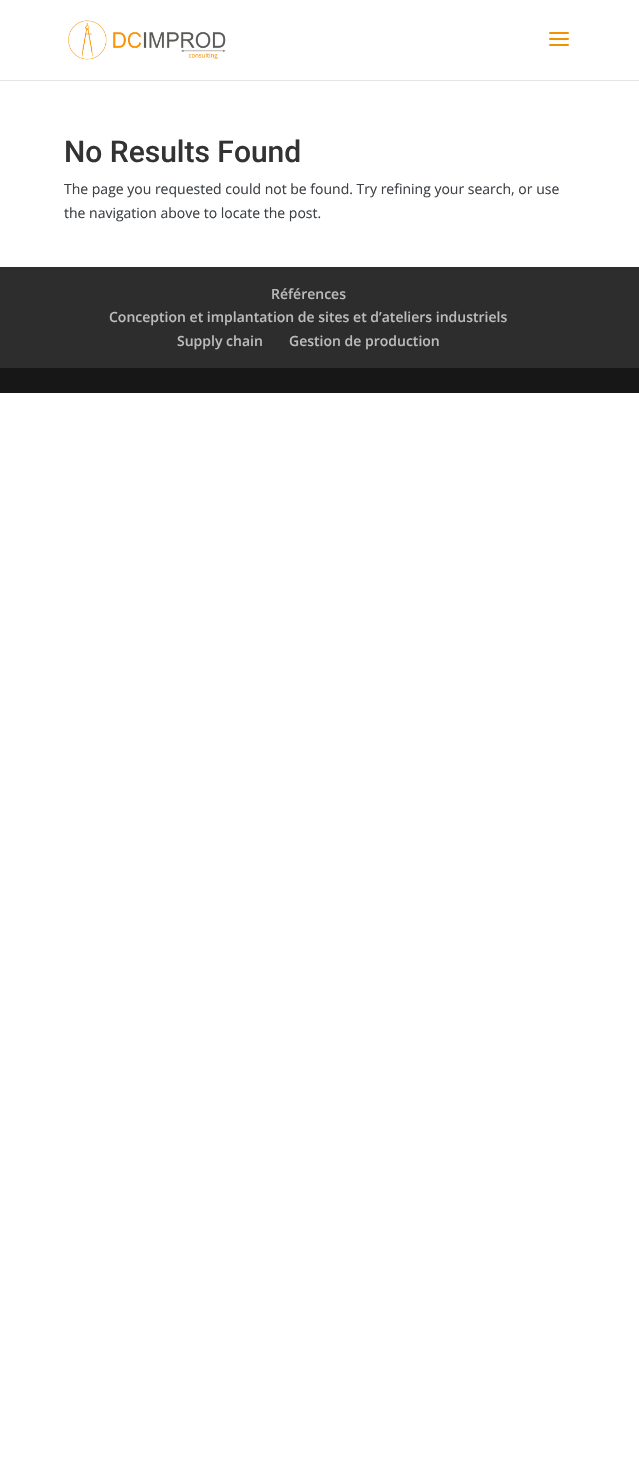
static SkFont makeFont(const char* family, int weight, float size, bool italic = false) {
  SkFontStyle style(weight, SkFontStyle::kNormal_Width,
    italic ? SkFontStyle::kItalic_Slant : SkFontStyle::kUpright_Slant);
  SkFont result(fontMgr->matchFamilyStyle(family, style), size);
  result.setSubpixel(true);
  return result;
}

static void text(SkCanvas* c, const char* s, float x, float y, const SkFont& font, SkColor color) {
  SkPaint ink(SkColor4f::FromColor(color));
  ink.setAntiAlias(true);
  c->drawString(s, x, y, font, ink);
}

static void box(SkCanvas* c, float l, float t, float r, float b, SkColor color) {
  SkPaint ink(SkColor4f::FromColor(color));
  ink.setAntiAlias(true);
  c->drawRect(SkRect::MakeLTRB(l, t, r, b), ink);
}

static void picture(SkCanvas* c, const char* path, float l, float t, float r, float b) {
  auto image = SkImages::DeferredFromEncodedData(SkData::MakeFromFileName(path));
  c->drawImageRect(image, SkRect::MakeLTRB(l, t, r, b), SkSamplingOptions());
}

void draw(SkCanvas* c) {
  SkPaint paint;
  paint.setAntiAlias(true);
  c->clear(0xffffffff);
  box(c, 0, 80, 639, 81, 0xffe6e6e6);
  picture(c, "img_01.png", 68, 20, 226, 60);
  picture(c, "img_02.png", 549, 32, 569, 46);
  SkFont face1 = makeFont("Roboto", 500, 30);
  text(c, "No Results Found", 64, 162, face1, 0xff333333);
  SkFont face2 = makeFont("Open Sans", 400, 14);
  text(c, "The page you requested could not be found. Try refining your search, or use", 64, 194, face2, 0xff3c4044);
  text(c, "the navigation above to locate the post.", 64, 218, face2, 0xff3c4044);
  box(c, 0, 267, 639, 368, 0xff2d2d2d);
  SkFont face3 = makeFont("Open Sans", 600, 14);
  text(c, "Références", 271, 299, face3, 0xffbbbbbb);
  text(c, "Conception et implantation de sites et d’ateliers industriels", 109, 322, face3, 0xffbbbbbb);
  text(c, "Supply chain", 177, 346, face3, 0xffbbbbbb);
  text(c, "Gestion de production", 289, 346, face3, 0xffbbbbbb);
  box(c, 0, 368, 639, 393, 0xff171717);
}
